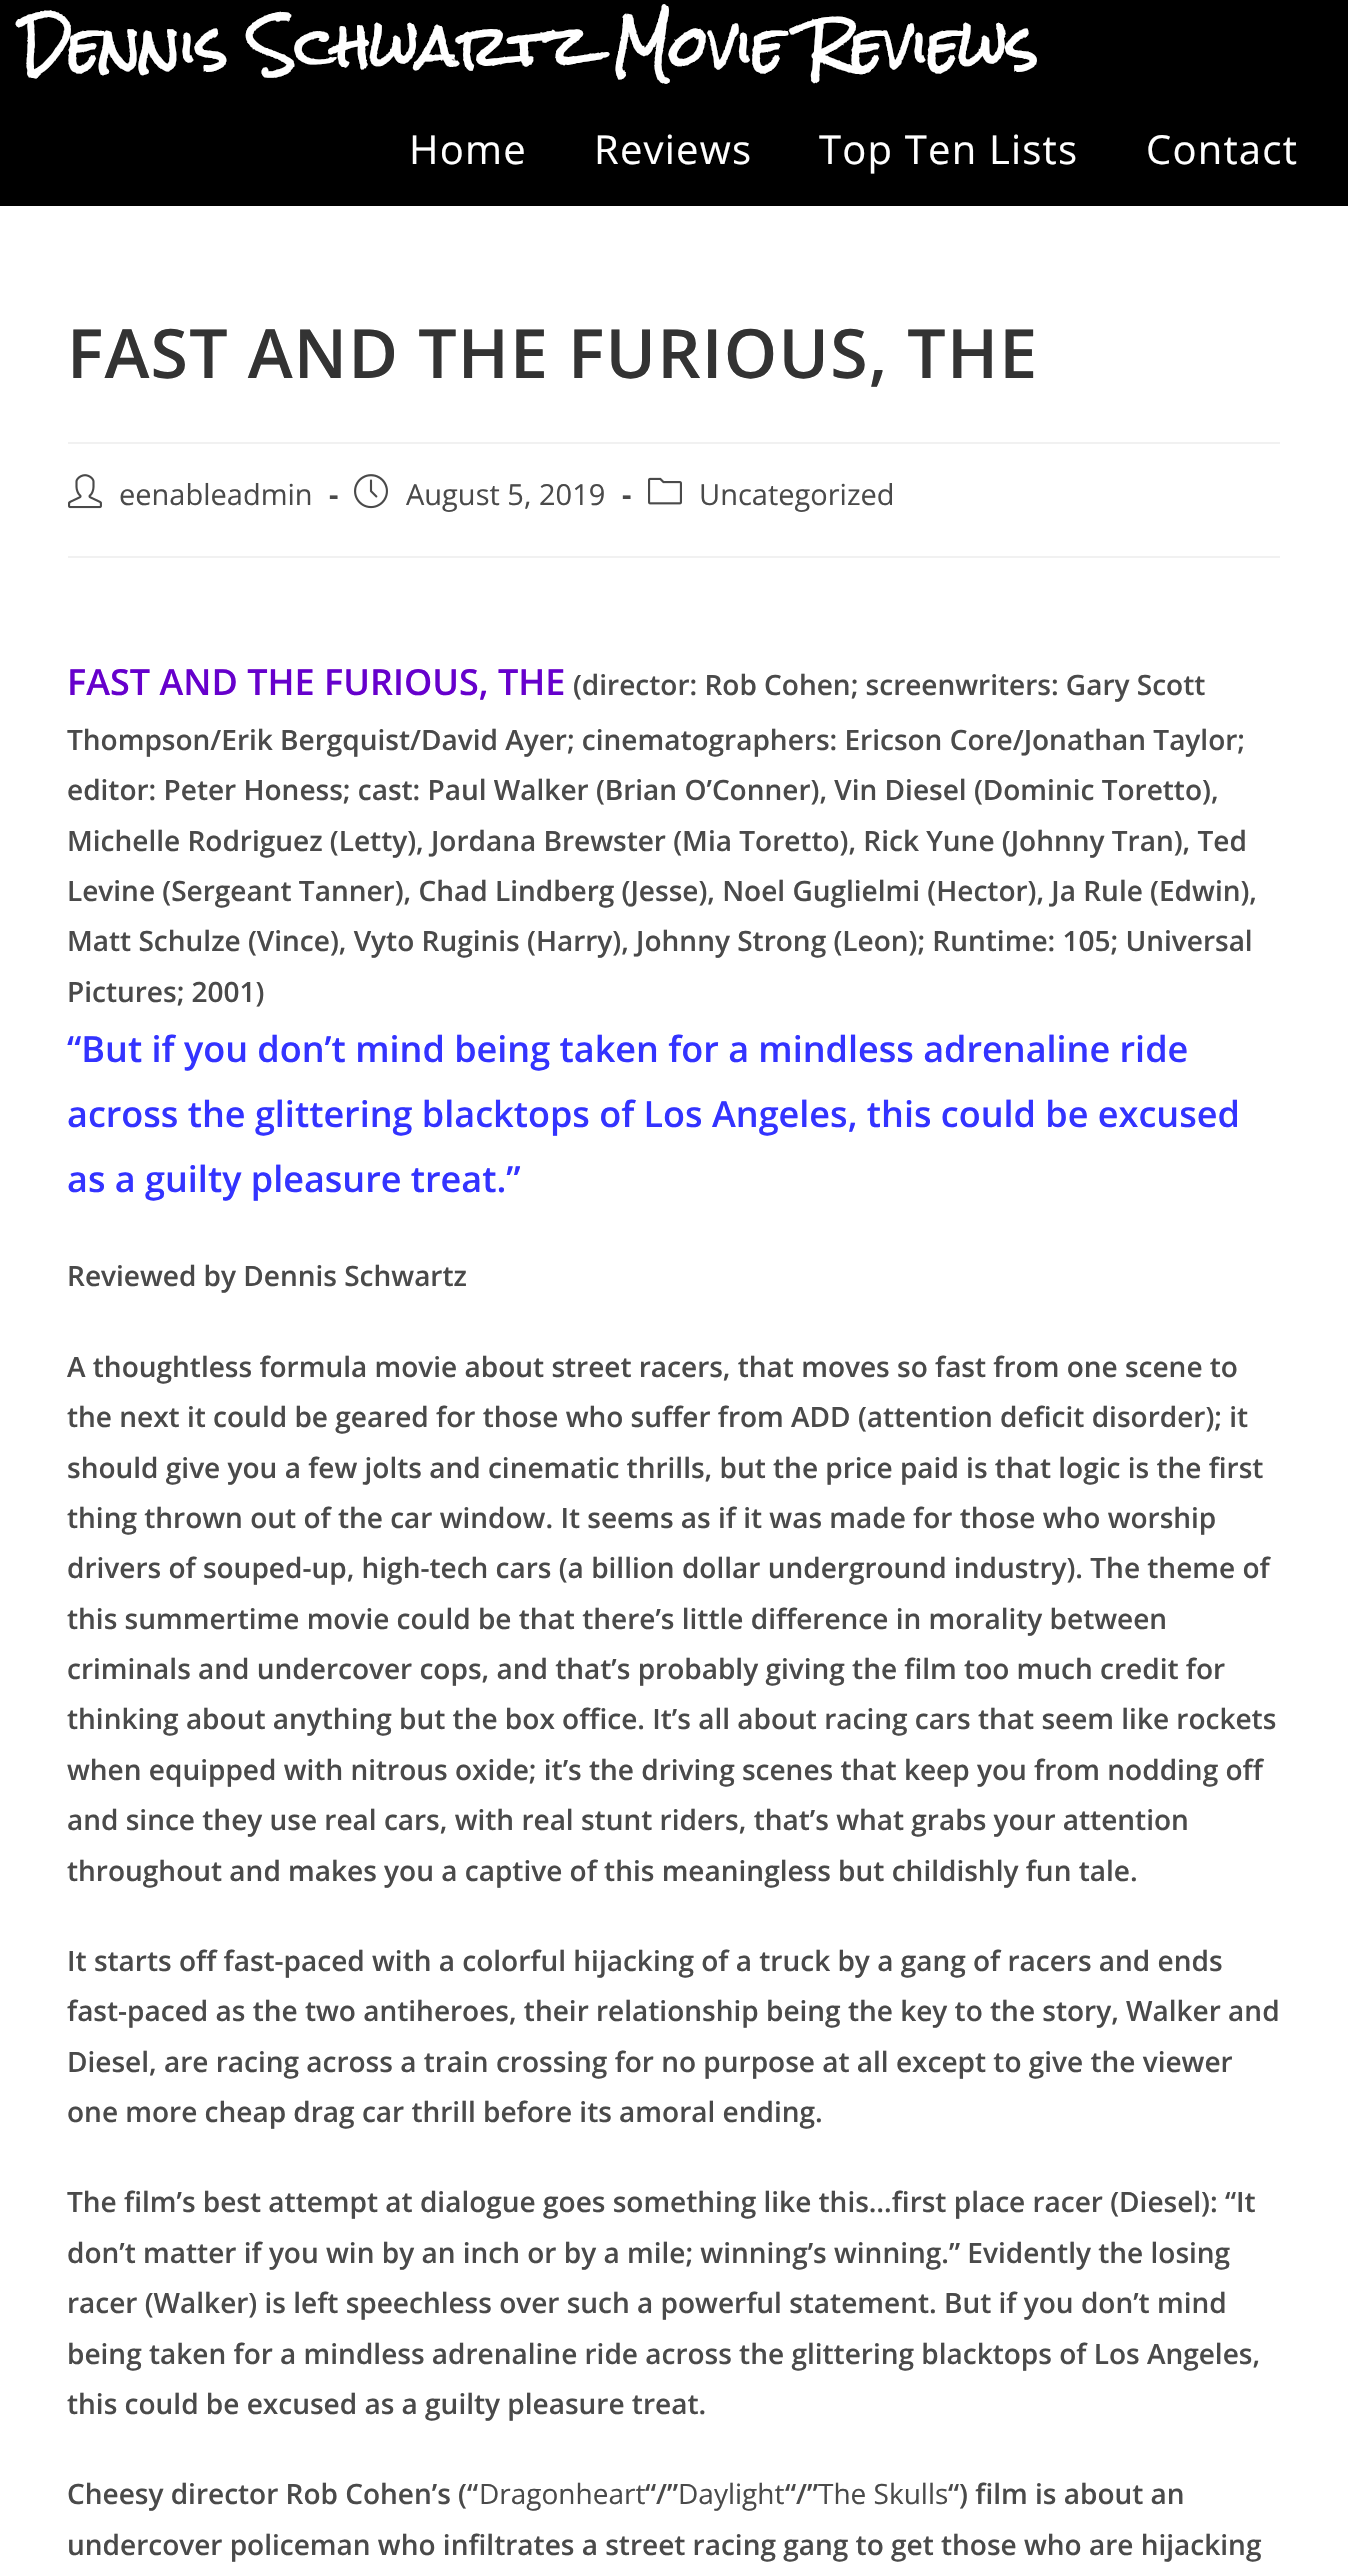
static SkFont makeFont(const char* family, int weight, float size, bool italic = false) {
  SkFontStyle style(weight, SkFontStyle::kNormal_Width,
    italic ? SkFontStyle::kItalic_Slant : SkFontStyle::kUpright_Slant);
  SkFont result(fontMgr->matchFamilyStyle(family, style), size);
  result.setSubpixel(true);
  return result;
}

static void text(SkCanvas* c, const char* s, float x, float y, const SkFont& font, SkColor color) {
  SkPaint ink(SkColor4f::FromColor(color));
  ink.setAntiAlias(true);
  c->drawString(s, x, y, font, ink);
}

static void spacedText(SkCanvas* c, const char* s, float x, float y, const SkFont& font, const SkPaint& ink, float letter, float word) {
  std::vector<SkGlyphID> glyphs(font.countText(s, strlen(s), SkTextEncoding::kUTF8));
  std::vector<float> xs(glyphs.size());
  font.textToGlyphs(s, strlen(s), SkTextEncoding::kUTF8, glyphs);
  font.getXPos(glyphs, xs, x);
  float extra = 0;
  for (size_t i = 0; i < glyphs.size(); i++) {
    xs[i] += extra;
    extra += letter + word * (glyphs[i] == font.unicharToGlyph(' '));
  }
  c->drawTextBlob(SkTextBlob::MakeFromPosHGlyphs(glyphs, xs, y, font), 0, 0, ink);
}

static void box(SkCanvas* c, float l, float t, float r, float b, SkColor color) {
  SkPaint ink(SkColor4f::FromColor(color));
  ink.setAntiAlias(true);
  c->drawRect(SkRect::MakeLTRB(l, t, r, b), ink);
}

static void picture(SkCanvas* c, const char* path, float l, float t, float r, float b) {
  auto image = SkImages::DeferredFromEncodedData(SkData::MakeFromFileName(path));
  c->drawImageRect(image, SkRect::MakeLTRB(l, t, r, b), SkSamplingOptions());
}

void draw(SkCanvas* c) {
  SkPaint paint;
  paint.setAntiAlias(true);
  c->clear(0xffffffff);
  box(c, 0, 0, 1348, 206, 0xff000000);
  SkFont face1 = makeFont("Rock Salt", 700, 54);
  text(c, "Dennis Schwartz Movie Reviews", 20, 68, face1, 0xffffffff);
  SkFont face2 = makeFont("Open Sans", 400, 40);
  paint.setColor(0xffffffff);
  spacedText(c, "Home", 409, 164, face2, paint, 1.2f, 0);
  spacedText(c, "Reviews", 594, 164, face2, paint, 1.2f, 0);
  spacedText(c, "Top Ten Lists", 819, 164, face2, paint, 1.2f, 0);
  spacedText(c, "Contact", 1146, 164, face2, paint, 1.2f, 0);
  box(c, 68, 442, 1280, 444, 0xfff1f1f1);
  SkFont face3 = makeFont("Open Sans", 600, 68);
  paint.setColor(0xff333333);
  spacedText(c, "FAST AND THE FURIOUS, THE", 67, 378, face3, paint, 1.2f, 0);
  box(c, 68, 556, 1280, 558, 0xfff1f1f1);
  picture(c, "img_01.png", 68, 474, 102, 509);
  SkFont face4 = makeFont("Open Sans", 400, 29);
  text(c, "eenableadmin", 119, 505, face4, 0xff4a4a4a);
  SkFont face5 = makeFont("Open Sans", 700, 29);
  text(c, "-", 329, 505, face5, 0xff4a4a4a);
  picture(c, "img_02.png", 354, 474, 388, 509);
  text(c, "August 5, 2019", 406, 505, face4, 0xff4a4a4a);
  text(c, "-", 622, 505, face5, 0xff4a4a4a);
  picture(c, "img_03.png", 648, 477, 682, 505);
  text(c, "Uncategorized", 699, 505, face4, 0xff4a4a4a);
  SkFont face6 = makeFont("Open Sans", 600, 36);
  text(c, "FAST AND THE FURIOUS, THE", 67, 695, face6, 0xff6600cc);
  SkFont face7 = makeFont("Open Sans", 600, 28);
  text(c, "(director: Rob Cohen; screenwriters: Gary Scott", 573, 695, face7, 0xff4a4a4a);
  text(c, "Thompson/Erik Bergquist/David Ayer; cinematographers: Ericson Core/Jonathan Taylor;", 67, 750, face7, 0xff4a4a4a);
  text(c, "editor: Peter Honess; cast: Paul Walker (Brian O’Conner), Vin Diesel (Dominic Toretto),", 67, 800, face7, 0xff4a4a4a);
  text(c, "Michelle Rodriguez (Letty), Jordana Brewster (Mia Toretto), Rick Yune (Johnny Tran), Ted", 67, 851, face7, 0xff4a4a4a);
  text(c, "Levine (Sergeant Tanner), Chad Lindberg (Jesse), Noel Guglielmi (Hector), Ja Rule (Edwin),", 67, 901, face7, 0xff4a4a4a);
  text(c, "Matt Schulze (Vince), Vyto Ruginis (Harry), Johnny Strong (Leon); Runtime: 105; Universal", 67, 951, face7, 0xff4a4a4a);
  text(c, "Pictures; 2001)", 67, 1002, face7, 0xff4a4a4a);
  text(c, "“But if you don’t mind being taken for a mindless adrenaline ride", 67, 1062, face6, 0xff3333ff);
  text(c, "across the glittering blacktops of Los Angeles, this could be excused", 67, 1127, face6, 0xff3333ff);
  text(c, "as a guilty pleasure treat.”", 67, 1192, face6, 0xff3333ff);
  text(c, "Reviewed by Dennis Schwartz", 67, 1286, face7, 0xff4a4a4a);
  text(c, "A thoughtless formula movie about street racers, that moves so fast from one scene to", 67, 1377, face7, 0xff4a4a4a);
  text(c, "the next it could be geared for those who suffer from ADD (attention deficit disorder); it", 67, 1427, face7, 0xff4a4a4a);
  text(c, "should give you a few jolts and cinematic thrills, but the price paid is that logic is the first", 67, 1478, face7, 0xff4a4a4a);
  text(c, "thing thrown out of the car window. It seems as if it was made for those who worship", 67, 1528, face7, 0xff4a4a4a);
  text(c, "drivers of souped-up, high-tech cars (a billion dollar underground industry). The theme of", 67, 1578, face7, 0xff4a4a4a);
  text(c, "this summertime movie could be that there’s little difference in morality between", 67, 1629, face7, 0xff4a4a4a);
  text(c, "criminals and undercover cops, and that’s probably giving the film too much credit for", 67, 1679, face7, 0xff4a4a4a);
  text(c, "thinking about anything but the box office. It’s all about racing cars that seem like rockets", 67, 1729, face7, 0xff4a4a4a);
  text(c, "when equipped with nitrous oxide; it’s the driving scenes that keep you from nodding off", 67, 1780, face7, 0xff4a4a4a);
  text(c, "and since they use real cars, with real stunt riders, that’s what grabs your attention", 67, 1830, face7, 0xff4a4a4a);
  text(c, "throughout and makes you a captive of this meaningless but childishly fun tale.", 67, 1881, face7, 0xff4a4a4a);
  text(c, "It starts off fast-paced with a colorful hijacking of a truck by a gang of racers and ends", 67, 1971, face7, 0xff4a4a4a);
  text(c, "fast-paced as the two antiheroes, their relationship being the key to the story, Walker and", 67, 2021, face7, 0xff4a4a4a);
  text(c, "Diesel, are racing across a train crossing for no purpose at all except to give the viewer", 67, 2072, face7, 0xff4a4a4a);
  text(c, "one more cheap drag car thrill before its amoral ending.", 67, 2122, face7, 0xff4a4a4a);
  text(c, "The film’s best attempt at dialogue goes something like this…first place racer (Diesel): “It", 67, 2212, face7, 0xff4a4a4a);
  text(c, "don’t matter if you win by an inch or by a mile; winning’s winning.” Evidently the losing", 67, 2263, face7, 0xff4a4a4a);
  text(c, "racer (Walker) is left speechless over such a powerful statement. But if you don’t mind", 67, 2313, face7, 0xff4a4a4a);
  text(c, "being taken for a mindless adrenaline ride across the glittering blacktops of Los Angeles,", 67, 2364, face7, 0xff4a4a4a);
  text(c, "this could be excused as a guilty pleasure treat.", 67, 2414, face7, 0xff4a4a4a);
  text(c, "Cheesy director Rob Cohen’s (“", 67, 2504, face7, 0xff4a4a4a);
  SkFont face8 = makeFont("Open Sans", 400, 28);
  text(c, "Dragonheart", 479, 2504, face8, 0xff4a4a4a);
  text(c, "“/”", 645, 2504, face7, 0xff4a4a4a);
  text(c, "Daylight", 678, 2504, face8, 0xff4a4a4a);
  text(c, "“/”", 785, 2504, face7, 0xff4a4a4a);
  text(c, "The Skulls", 818, 2504, face8, 0xff4a4a4a);
  text(c, "“) film is about an", 948, 2504, face7, 0xff4a4a4a);
  text(c, "undercover policeman who infiltrates a street racing gang to get those who are hijacking", 67, 2555, face7, 0xff4a4a4a);
}
